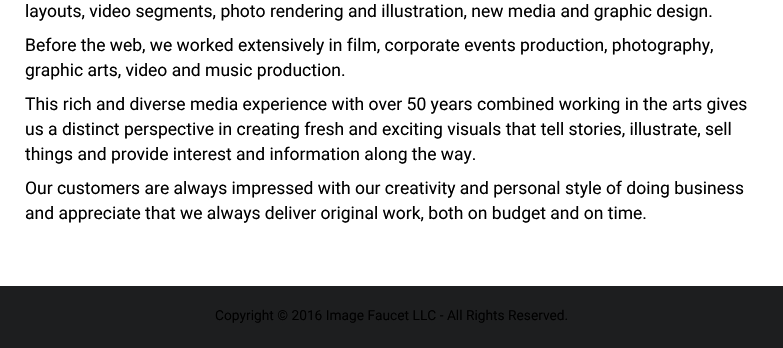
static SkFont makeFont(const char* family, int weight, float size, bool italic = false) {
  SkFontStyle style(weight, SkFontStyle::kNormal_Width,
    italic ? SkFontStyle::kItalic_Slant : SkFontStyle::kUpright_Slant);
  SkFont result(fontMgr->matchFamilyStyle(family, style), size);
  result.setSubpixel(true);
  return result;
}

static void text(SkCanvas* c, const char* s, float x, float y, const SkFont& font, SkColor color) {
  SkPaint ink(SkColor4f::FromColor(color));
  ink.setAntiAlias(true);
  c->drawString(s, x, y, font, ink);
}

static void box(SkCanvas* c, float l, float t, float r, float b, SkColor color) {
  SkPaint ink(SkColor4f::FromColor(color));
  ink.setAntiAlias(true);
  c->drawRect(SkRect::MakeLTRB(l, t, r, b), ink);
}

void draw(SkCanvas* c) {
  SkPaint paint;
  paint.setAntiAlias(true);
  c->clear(0xffffffff);
  SkFont face1 = makeFont("Roboto", 400, 17.5f);
  text(c, "layouts, video segments, photo rendering and illustration, new media and graphic design.", 25, 17, face1, 0xff000000);
  text(c, "Before the web, we worked extensively in film, corporate events production, photography,", 25, 51, face1, 0xff000000);
  text(c, "graphic arts, video and music production.", 25, 76, face1, 0xff000000);
  text(c, "This rich and diverse media experience with over 50 years combined working in the arts gives", 25, 110, face1, 0xff000000);
  text(c, "us a distinct perspective in creating fresh and exciting visuals that tell stories, illustrate, sell", 25, 135, face1, 0xff000000);
  text(c, "things and provide interest and information along the way.", 25, 160, face1, 0xff000000);
  text(c, "Our customers are always impressed with our creativity and personal style of doing business", 25, 194, face1, 0xff000000);
  text(c, "and appreciate that we always deliver original work, both on budget and on time.", 25, 219, face1, 0xff000000);
  box(c, 0, 286, 783, 348, 0xff1d1e1f);
  SkFont face2 = makeFont("Roboto", 400, 13.75f);
  text(c, "Copyright © 2016 Image Faucet LLC - All Rights Reserved.", 215, 320, face2, 0xff000000);
}
